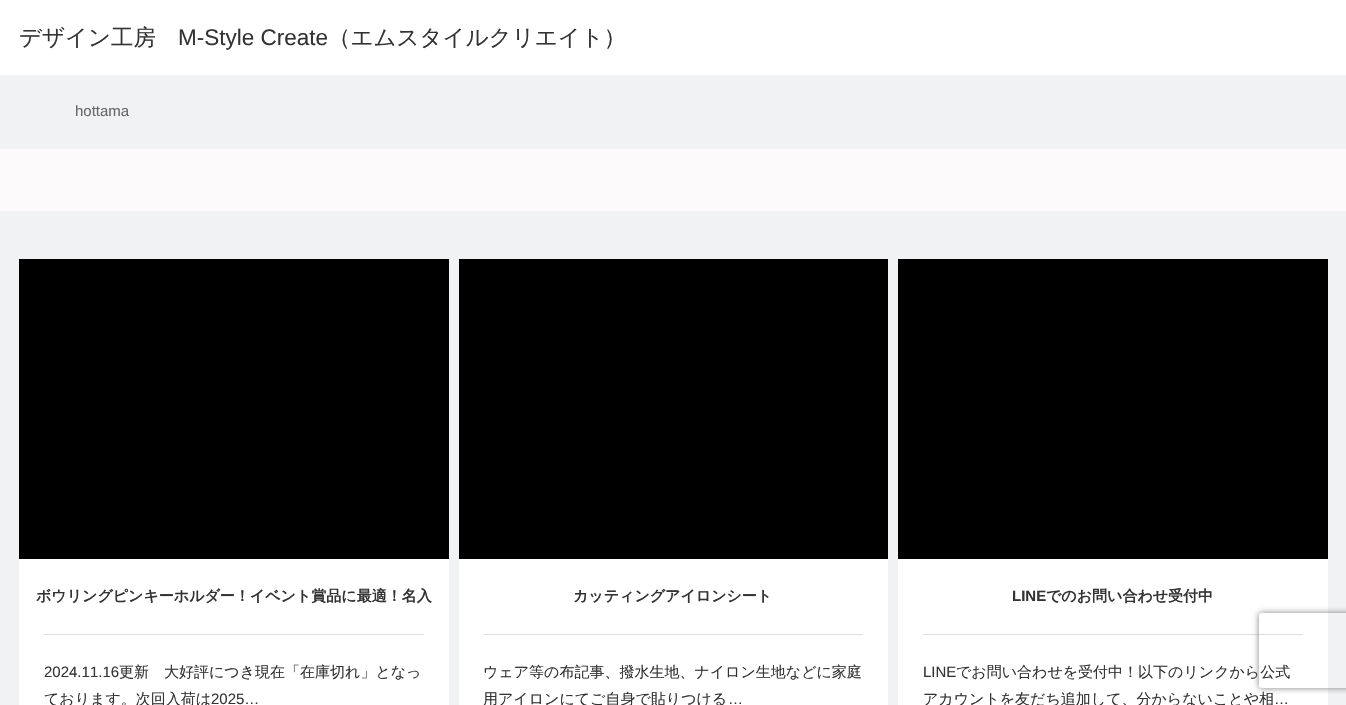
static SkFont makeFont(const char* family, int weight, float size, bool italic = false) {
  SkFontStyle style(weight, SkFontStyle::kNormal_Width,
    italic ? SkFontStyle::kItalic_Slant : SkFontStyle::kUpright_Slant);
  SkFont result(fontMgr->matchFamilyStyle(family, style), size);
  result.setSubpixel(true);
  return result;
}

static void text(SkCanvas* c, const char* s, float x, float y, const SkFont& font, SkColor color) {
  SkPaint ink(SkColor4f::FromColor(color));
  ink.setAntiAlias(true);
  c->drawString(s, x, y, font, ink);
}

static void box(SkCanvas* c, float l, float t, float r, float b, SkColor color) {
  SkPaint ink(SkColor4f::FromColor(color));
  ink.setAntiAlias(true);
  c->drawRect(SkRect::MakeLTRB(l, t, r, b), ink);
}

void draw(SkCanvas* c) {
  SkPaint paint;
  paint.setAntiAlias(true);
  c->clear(0xffffffff);
  SkFont face1 = makeFont("WenQuanYi Zen Hei", 500, 22.5f);
  text(c, "デザイン工房", 19, 45, face1, 0xff333333);
  SkFont face2 = makeFont("Liberation Sans", 400, 22.5f);
  text(c, "M-Style Create", 178, 45, face2, 0xff333333);
  text(c, "（エムスタイルクリエイト）", 328, 45, face1, 0xff333333);
  box(c, 0, 75, 1346, 705, 0xfff0f2f3);
  SkFont face3 = makeFont("Liberation Sans", 400, 15);
  text(c, "hottama", 75, 116, face3, 0xff666666);
  box(c, 0, 149, 1346, 211, 0xfffcfafa);
  box(c, 19, 559, 449, 705, 0xffffffff);
  box(c, 19, 259, 449, 559, 0xff000000);
  SkFont face4 = makeFont("WenQuanYi Zen Hei", 700, 15);
  text(c, "ボウリングピンキーホルダー！イベント賞品に最適！名入", 36, 601, face4, 0xff333333);
  box(c, 44, 634, 424, 635, 0xffdddddd);
  text(c, "2024.11.16", 44, 677, face3, 0xff333333);
  SkFont face5 = makeFont("WenQuanYi Zen Hei", 500, 15);
  text(c, "更新　大好評につき現在「在庫切れ」となっ", 119, 677, face5, 0xff333333);
  text(c, "ております。次回入荷は", 44, 704, face5, 0xff333333);
  text(c, "2025…", 211, 704, face3, 0xff333333);
  box(c, 459, 559, 888, 705, 0xffffffff);
  box(c, 459, 259, 888, 559, 0xff000000);
  text(c, "カッティングアイロンシート", 573, 601, face4, 0xff333333);
  box(c, 484, 634, 863, 635, 0xffdddddd);
  text(c, "ウェア等の布記事、撥水生地、ナイロン生地などに家庭", 483, 677, face5, 0xff333333);
  text(c, "用アイロンにてご自身で貼りつける", 483, 704, face5, 0xff333333);
  text(c, "…", 728, 704, face3, 0xff333333);
  box(c, 898, 559, 1328, 705, 0xffffffff);
  box(c, 898, 259, 1328, 559, 0xff000000);
  SkFont face6 = makeFont("Liberation Sans", 700, 15);
  text(c, "LINE", 1012, 601, face6, 0xff333333);
  text(c, "でのお問い合わせ受付中", 1046, 601, face4, 0xff333333);
  box(c, 923, 634, 1303, 635, 0xffdddddd);
  text(c, "LINE", 923, 677, face3, 0xff333333);
  text(c, "でお問い合わせを受付中！以下のリンクから公式", 956, 677, face5, 0xff333333);
  text(c, "アカウントを友だち追加して、分からないことや相", 923, 704, face5, 0xff333333);
  text(c, "…", 1274, 704, face3, 0xff333333);
  c->save();
  c->clipPath(SkPathBuilder(SkPathFillType::kEvenOdd).moveTo(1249, 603).lineTo(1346, 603).lineTo(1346, 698).lineTo(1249, 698).close().moveTo(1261.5f, 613).lineTo(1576.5f, 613).cubicTo(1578, 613, 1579, 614, 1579, 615.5f).lineTo(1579, 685.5f).cubicTo(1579, 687, 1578, 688, 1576.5f, 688).lineTo(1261.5f, 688).cubicTo(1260, 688, 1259, 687, 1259, 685.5f).lineTo(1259, 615.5f).cubicTo(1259, 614, 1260, 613, 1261.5f, 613).close().detach(), true);
  paint.setColor(0xff808080);
  paint.setMaskFilter(SkMaskFilter::MakeBlur(kNormal_SkBlurStyle, 3));
  c->drawRoundRect(SkRect::MakeLTRB(1259, 613, 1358, 688), 2.5f, 2.5f, paint);
  paint.setMaskFilter(nullptr);
  c->restore();
}
